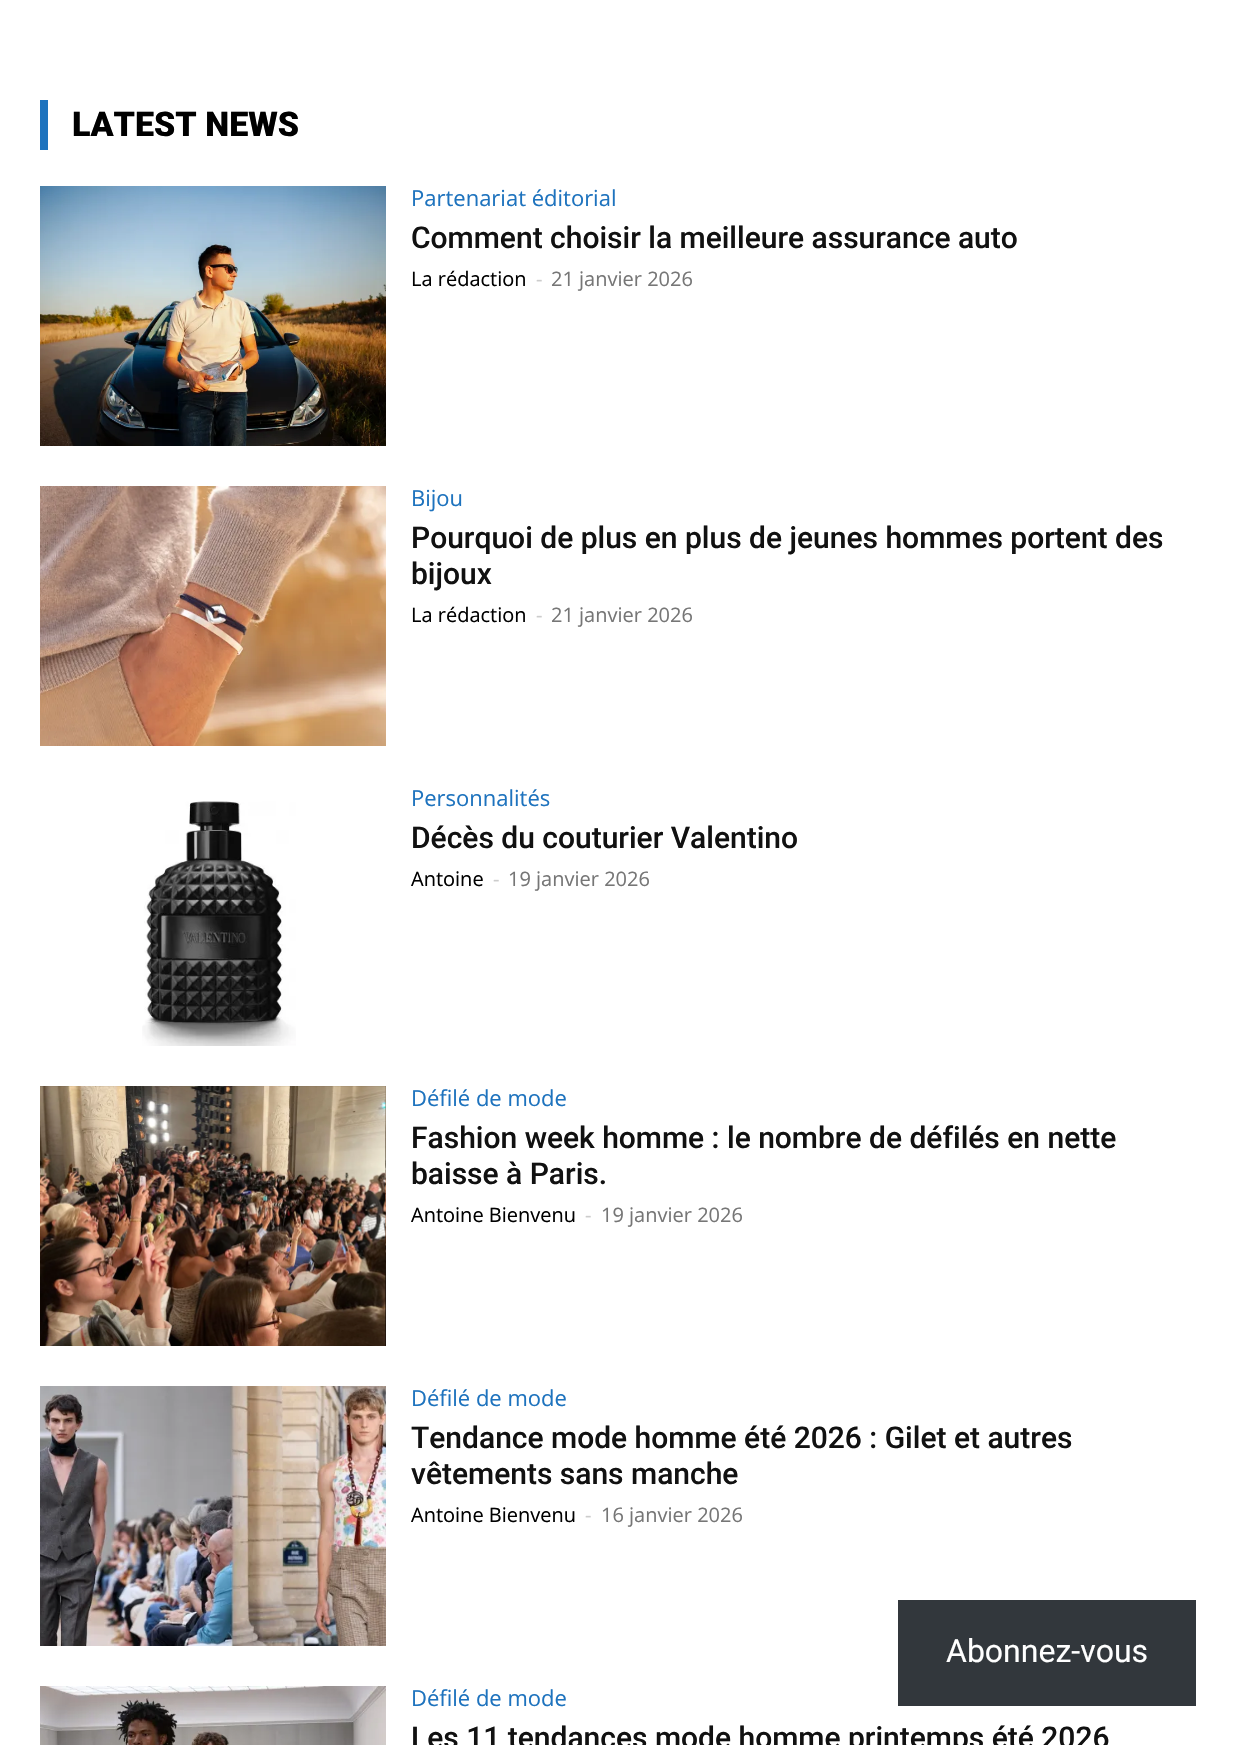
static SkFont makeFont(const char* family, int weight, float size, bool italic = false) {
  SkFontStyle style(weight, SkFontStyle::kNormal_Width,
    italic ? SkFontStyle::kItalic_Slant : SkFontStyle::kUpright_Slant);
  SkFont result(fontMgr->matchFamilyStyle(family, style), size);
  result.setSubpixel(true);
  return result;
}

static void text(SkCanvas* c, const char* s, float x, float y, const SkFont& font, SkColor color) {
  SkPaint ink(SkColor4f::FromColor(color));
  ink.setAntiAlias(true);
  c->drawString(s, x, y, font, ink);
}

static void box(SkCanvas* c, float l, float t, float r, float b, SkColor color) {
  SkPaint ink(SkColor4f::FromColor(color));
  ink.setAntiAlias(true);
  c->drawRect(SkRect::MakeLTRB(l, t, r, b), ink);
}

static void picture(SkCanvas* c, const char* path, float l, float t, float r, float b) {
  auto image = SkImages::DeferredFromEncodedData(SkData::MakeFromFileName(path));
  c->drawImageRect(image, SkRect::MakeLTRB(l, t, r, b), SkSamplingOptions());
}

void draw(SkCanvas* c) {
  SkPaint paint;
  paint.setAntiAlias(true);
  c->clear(0xffffffff);
  box(c, 40, 100, 48, 150, 0xff1e73be);
  SkFont face1 = makeFont("Roboto", 900, 34);
  text(c, "LATEST NEWS", 72, 136, face1, 0xff000000);
  picture(c, "img_01.png", 40, 186, 386, 446);
  SkFont face2 = makeFont("Open Sans", 400, 22);
  text(c, "Partenariat éditorial", 411, 206, face2, 0xff1e73be);
  SkFont face3 = makeFont("Roboto", 500, 30);
  text(c, "Comment choisir la meilleure assurance auto", 411, 248, face3, 0xff111111);
  SkFont face4 = makeFont("Open Sans", 400, 20);
  text(c, "La rédaction", 411, 286, face4, 0xff000000);
  text(c, "-", 536, 286, face4, 0xffcccccc);
  text(c, "21 janvier 2026", 551, 286, face4, 0xff767676);
  picture(c, "img_02.png", 40, 486, 386, 746);
  text(c, "Bijou", 411, 506, face2, 0xff1e73be);
  text(c, "Pourquoi de plus en plus de jeunes hommes portent des", 411, 548, face3, 0xff111111);
  text(c, "bijoux", 411, 584, face3, 0xff111111);
  text(c, "La rédaction", 411, 622, face4, 0xff000000);
  text(c, "-", 536, 622, face4, 0xffcccccc);
  text(c, "21 janvier 2026", 551, 622, face4, 0xff767676);
  picture(c, "img_03.png", 142, 801, 296, 1046);
  text(c, "Personnalités", 411, 806, face2, 0xff1e73be);
  text(c, "Décès du couturier Valentino", 411, 848, face3, 0xff111111);
  text(c, "Antoine", 411, 886, face4, 0xff000000);
  text(c, "-", 493, 886, face4, 0xffcccccc);
  text(c, "19 janvier 2026", 508, 886, face4, 0xff767676);
  picture(c, "img_04.png", 40, 1086, 386, 1346);
  text(c, "Défilé de mode", 411, 1106, face2, 0xff1e73be);
  text(c, "Fashion week homme : le nombre de défilés en nette", 411, 1148, face3, 0xff111111);
  text(c, "baisse à Paris.", 411, 1184, face3, 0xff111111);
  text(c, "Antoine Bienvenu", 411, 1222, face4, 0xff000000);
  text(c, "-", 585, 1222, face4, 0xffcccccc);
  text(c, "19 janvier 2026", 601, 1222, face4, 0xff767676);
  picture(c, "img_05.png", 40, 1386, 386, 1646);
  text(c, "Défilé de mode", 411, 1406, face2, 0xff1e73be);
  text(c, "Tendance mode homme été 2026 : Gilet et autres", 411, 1448, face3, 0xff111111);
  text(c, "vêtements sans manche", 411, 1484, face3, 0xff111111);
  text(c, "Antoine Bienvenu", 411, 1522, face4, 0xff000000);
  text(c, "-", 585, 1522, face4, 0xffcccccc);
  text(c, "16 janvier 2026", 601, 1522, face4, 0xff767676);
  picture(c, "img_06.png", 40, 1686, 386, 1745);
  text(c, "Défilé de mode", 411, 1706, face2, 0xff1e73be);
  text(c, "Les 11 tendances mode homme printemps été 2026", 411, 1748, face3, 0xff111111);
  box(c, 898, 1600, 1196, 1706, 0xff32373c);
  SkFont face5 = makeFont("Roboto", 400, 32);
  text(c, "Abonnez-vous", 946, 1662, face5, 0xffffffff);
}
